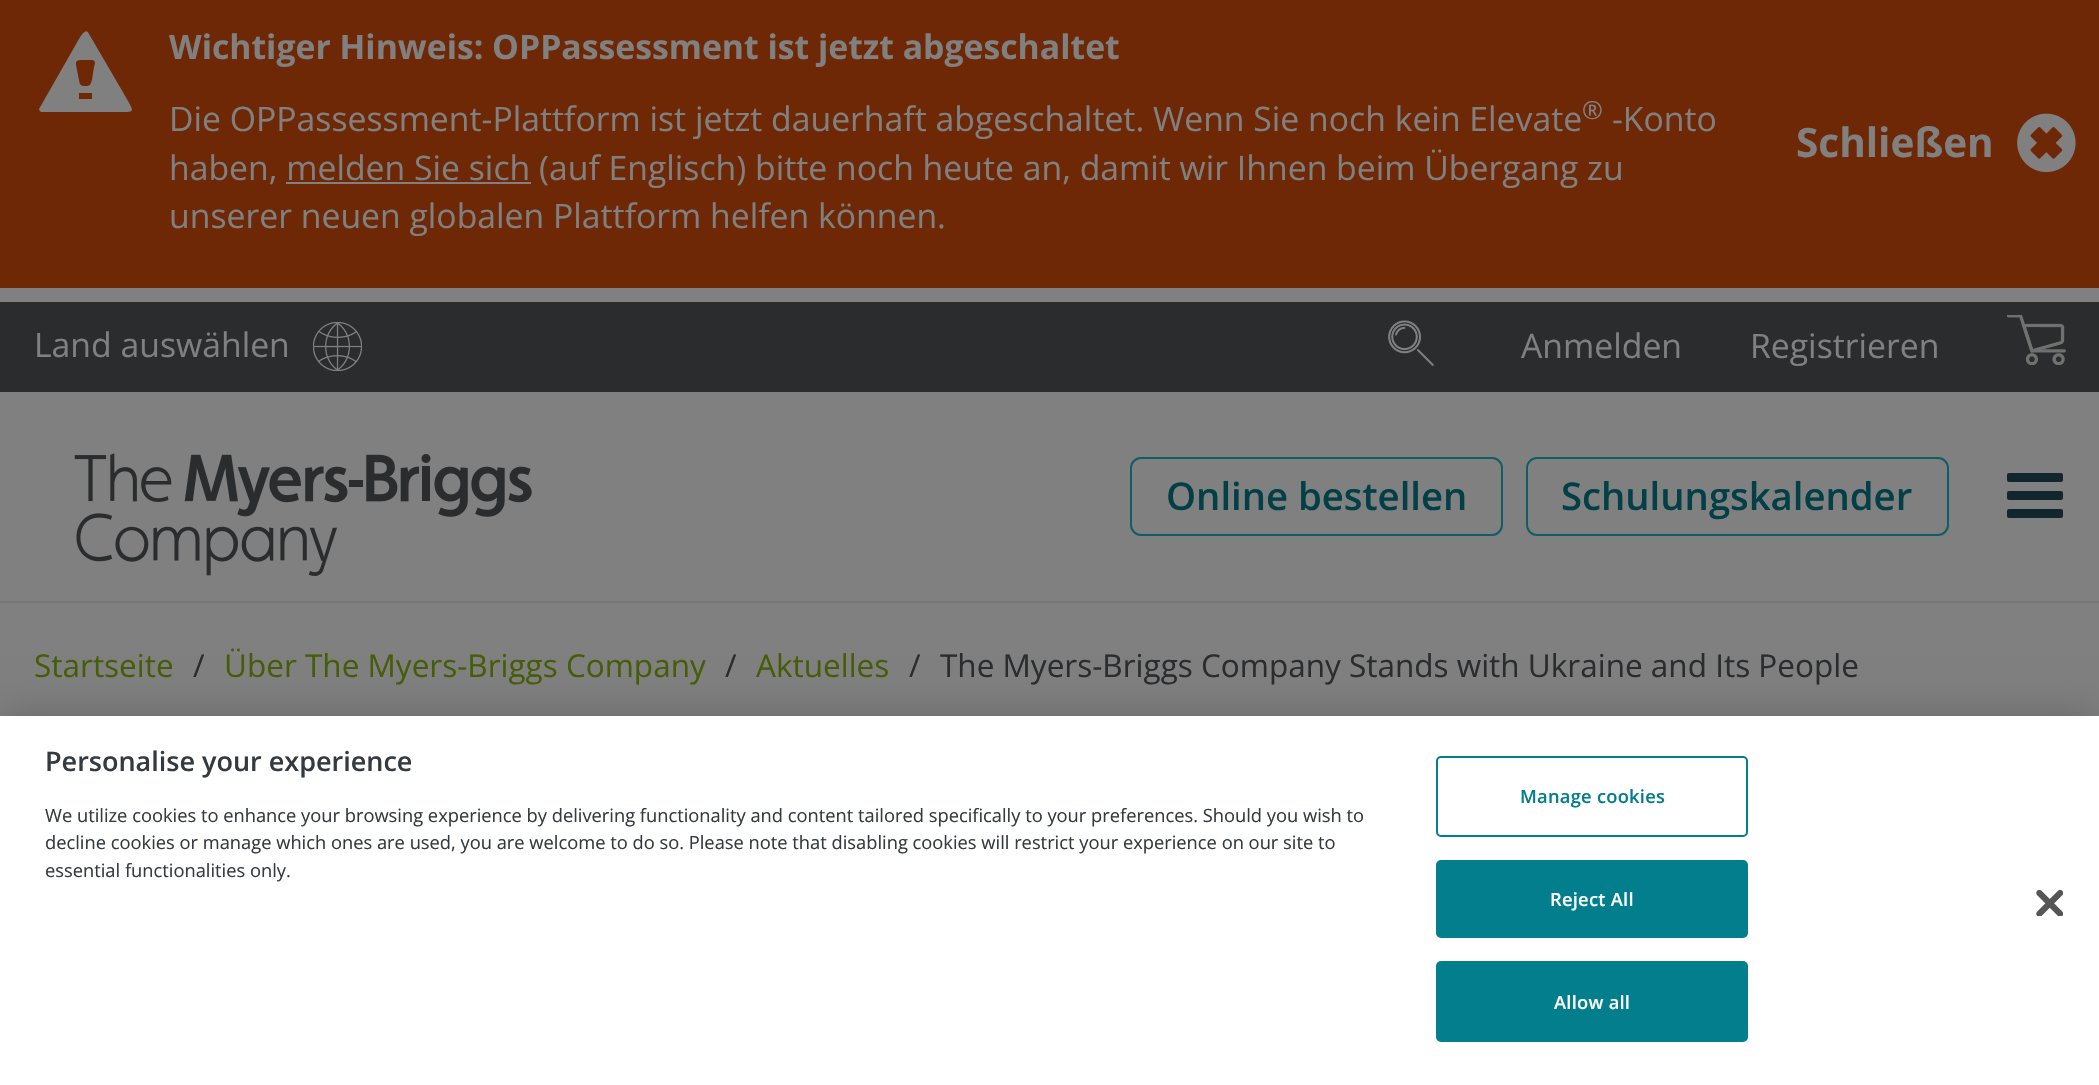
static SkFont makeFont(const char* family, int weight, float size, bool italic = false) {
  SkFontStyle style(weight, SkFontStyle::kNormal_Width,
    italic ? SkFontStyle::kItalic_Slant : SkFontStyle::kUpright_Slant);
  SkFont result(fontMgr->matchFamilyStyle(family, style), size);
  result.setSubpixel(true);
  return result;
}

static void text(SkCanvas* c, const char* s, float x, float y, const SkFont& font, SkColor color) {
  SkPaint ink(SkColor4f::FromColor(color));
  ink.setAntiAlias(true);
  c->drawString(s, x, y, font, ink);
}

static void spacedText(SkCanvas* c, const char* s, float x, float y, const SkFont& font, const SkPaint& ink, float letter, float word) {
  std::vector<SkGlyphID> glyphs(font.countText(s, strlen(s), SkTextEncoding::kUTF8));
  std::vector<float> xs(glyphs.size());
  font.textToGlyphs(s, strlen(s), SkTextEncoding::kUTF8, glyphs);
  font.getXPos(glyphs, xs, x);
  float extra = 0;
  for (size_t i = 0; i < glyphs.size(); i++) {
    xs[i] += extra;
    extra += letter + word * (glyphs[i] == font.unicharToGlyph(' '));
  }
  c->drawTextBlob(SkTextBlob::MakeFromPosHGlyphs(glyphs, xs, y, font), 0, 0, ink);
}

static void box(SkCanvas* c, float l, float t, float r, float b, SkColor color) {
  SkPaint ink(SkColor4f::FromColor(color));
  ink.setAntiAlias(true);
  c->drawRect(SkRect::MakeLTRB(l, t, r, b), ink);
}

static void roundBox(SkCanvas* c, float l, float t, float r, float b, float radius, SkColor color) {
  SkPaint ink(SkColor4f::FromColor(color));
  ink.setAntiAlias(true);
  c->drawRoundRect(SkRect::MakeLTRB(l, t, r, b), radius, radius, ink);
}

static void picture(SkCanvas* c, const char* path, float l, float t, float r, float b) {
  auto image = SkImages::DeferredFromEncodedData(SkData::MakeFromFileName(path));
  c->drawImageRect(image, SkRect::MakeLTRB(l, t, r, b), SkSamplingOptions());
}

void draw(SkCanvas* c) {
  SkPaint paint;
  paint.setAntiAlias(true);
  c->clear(0xff808080);
  box(c, 0, 0, 2099, 288, 0xff6e2805);
  paint.setColor(0xff808080);
  c->drawPath(SkPathBuilder().moveTo(89, 34).lineTo(124, 94).cubicTo(135, 114, 137, 112, 114, 112).lineTo(44, 112).lineTo(41, 112).cubicTo(40, 111, 39, 110, 39, 109).lineTo(75, 46).cubicTo(80, 38, 85, 26, 89, 34).close().moveTo(92, 60).lineTo(81, 60).cubicTo(74, 60, 76, 64, 77, 70).lineTo(79, 80).cubicTo(80, 86, 81, 86, 87, 86).cubicTo(91, 86, 91, 82, 92, 80).lineTo(94, 67).cubicTo(95, 64, 96, 60, 92, 60).close().moveTo(79, 93).lineTo(79, 99).lineTo(92, 99).lineTo(92, 93).close().detach(), paint);
  SkFont face1 = makeFont("Open Sans", 700, 33.75f);
  text(c, "Wichtiger Hinweis: OPPassessment ist jetzt abgeschaltet", 169, 59, face1, 0xff808080);
  SkFont face2 = makeFont("Open Sans", 400, 33.75f);
  text(c, "Die OPPassessment-Plattform ist jetzt dauerhaft abgeschaltet. Wenn Sie noch kein Elevate", 169, 131, face2, 0xff808080);
  SkFont face3 = makeFont("Open Sans", 400, 25);
  text(c, "®", 1582, 119, face3, 0xff808080);
  text(c, "-Konto", 1612, 131, face2, 0xff808080);
  text(c, "haben, melden Sie sich (auf Englisch) bitte noch heute an, damit wir Ihnen beim Übergang zu", 169, 180, face2, 0xff808080);
  box(c, 286, 182, 531, 184, 0xff808080);
  text(c, "unserer neuen globalen Plattform helfen können.", 169, 228, face2, 0xff808080);
  SkFont face4 = makeFont("Open Sans", 700, 40.5f);
  text(c, "Schließen", 1796, 157, face4, 0xff808080);
  picture(c, "img_01.png", 2017, 113, 2076, 173);
  box(c, 0, 601, 2099, 603, 0xff787777);
  box(c, 0, 302, 2099, 392, 0xff2a2c2e);
  text(c, "Land auswählen", 34, 357, face2, 0xff808080);
  picture(c, "img_02.png", 313, 322, 362, 371);
  picture(c, "img_03.png", 1388, 320, 1434, 366);
  text(c, "Anmelden", 1521, 358, face2, 0xff808080);
  text(c, "Registrieren", 1750, 358, face2, 0xff808080);
  picture(c, "img_04.png", 2007, 315, 2066, 365);
  picture(c, "img_05.png", 74, 453, 532, 576);
  paint.setStyle(SkPaint::kStroke_Style);
  paint.setStrokeWidth(2);
  paint.setColor(0xff105d65);
  c->drawRoundRect(SkRect::MakeLTRB(1131, 458, 1502, 535), 10, 10, paint);
  SkFont face5 = makeFont("Open Sans", 600, 38.25f);
  text(c, "Online bestellen", 1166, 510, face5, 0xff023f46);
  c->drawRoundRect(SkRect::MakeLTRB(1527, 458, 1948, 535), 10, 10, paint);
  text(c, "Schulungskalender", 1561, 510, face5, 0xff023f46);
  roundBox(c, 2007, 473, 2063, 482, 2, 0xff12262d);
  roundBox(c, 2007, 491, 2063, 500, 2, 0xff12262d);
  roundBox(c, 2007, 509, 2063, 518, 2, 0xff12262d);
  SkFont face6 = makeFont("Open Sans", 400, 31.5f);
  text(c, "Startseite", 34, 677, face6, 0xff465c08);
  text(c, "/", 193, 677, face6, 0xff2a2c2e);
  text(c, "Über The Myers-Briggs Company", 224, 677, face6, 0xff465c08);
  text(c, "/", 725, 677, face6, 0xff2a2c2e);
  text(c, "Aktuelles", 756, 677, face6, 0xff465c08);
  text(c, "/", 909, 677, face6, 0xff2a2c2e);
  text(c, "The Myers-Briggs Company Stands with Ukraine and Its People", 940, 677, face6, 0xff2a2c2e);
  paint.setStyle(SkPaint::kFill_Style);
  paint.setColor(0x33000000);
  paint.setMaskFilter(SkMaskFilter::MakeBlur(kNormal_SkBlurStyle, 20));
  c->drawRect(SkRect::MakeLTRB(0, 716, 2099, 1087), paint);
  paint.setMaskFilter(nullptr);
  box(c, 0, 716, 2099, 1085, 0xffffffff);
  SkFont face7 = makeFont("Open Sans", 600, 27);
  text(c, "Personalise your experience", 45, 771, face7, 0xff343a40);
  SkFont face8 = makeFont("Open Sans", 400, 18.3f);
  text(c, "We utilize cookies to enhance your browsing experience by delivering functionality and content tailored specifically to your preferences. Should you wish to", 45, 822, face8, 0xff343a40);
  text(c, "decline cookies or manage which ones are used, you are welcome to do so. Please note that disabling cookies will restrict your experience on our site to", 45, 849, face8, 0xff343a40);
  text(c, "essential functionalities only.", 45, 877, face8, 0xff343a40);
  paint.setStyle(SkPaint::kStroke_Style);
  paint.setColor(0xff037e8c);
  c->drawRoundRect(SkRect::MakeLTRB(1437, 757, 1747, 836), 4, 4, paint);
  SkFont face9 = makeFont("Open Sans", 600, 18.3f);
  paint.setStyle(SkPaint::kFill_Style);
  spacedText(c, "Manage cookies", 1520, 803, face9, paint, 0.25f, 0);
  c->drawRoundRect(SkRect::MakeLTRB(1437, 861, 1747, 937), 4, 4, paint);
  paint.setStyle(SkPaint::kStroke_Style);
  c->drawRoundRect(SkRect::MakeLTRB(1437, 861, 1747, 937), 4, 4, paint);
  paint.setStyle(SkPaint::kFill_Style);
  paint.setColor(0xffffffff);
  spacedText(c, "Reject All", 1550, 906, face9, paint, 0.25f, 0);
  paint.setColor(0xff037e8c);
  c->drawRoundRect(SkRect::MakeLTRB(1437, 962, 1747, 1041), 4, 4, paint);
  paint.setStyle(SkPaint::kStroke_Style);
  c->drawRoundRect(SkRect::MakeLTRB(1437, 962, 1747, 1041), 4, 4, paint);
  paint.setStyle(SkPaint::kFill_Style);
  paint.setColor(0xffffffff);
  spacedText(c, "Allow all", 1554, 1009, face9, paint, 0.25f, 0);
  picture(c, "img_06.png", 2036, 889, 2063, 916);
}
